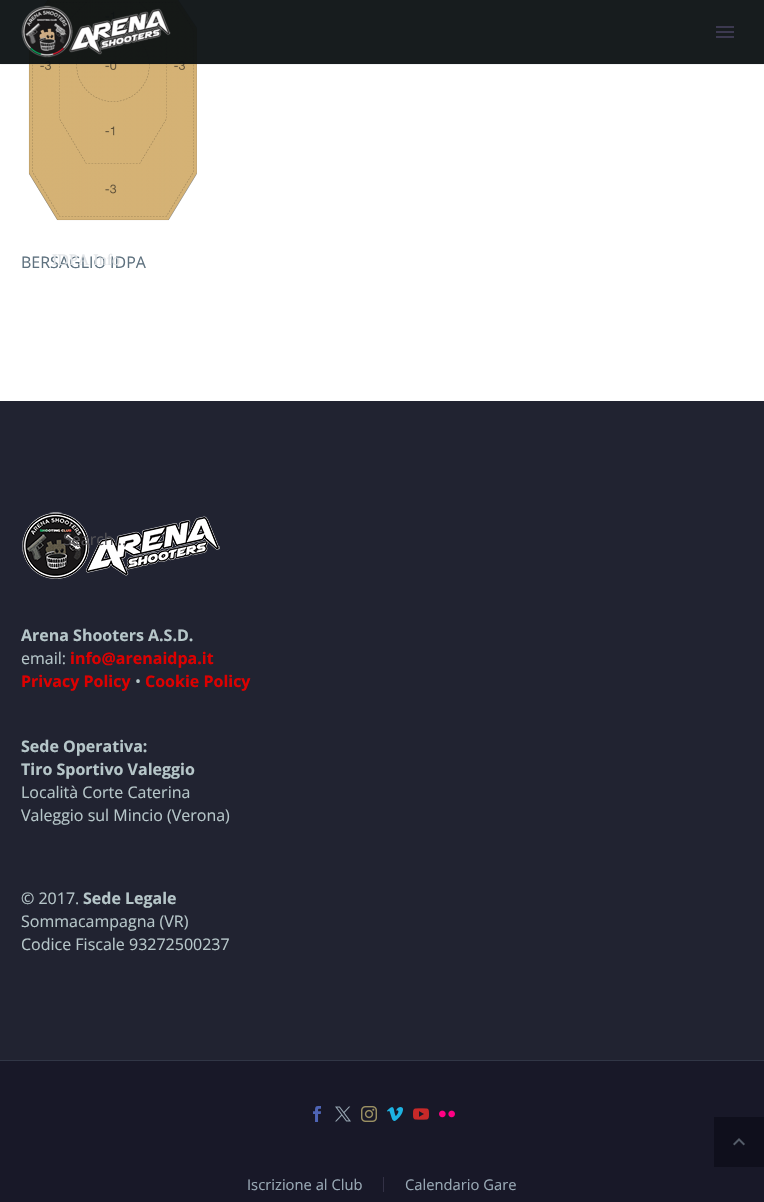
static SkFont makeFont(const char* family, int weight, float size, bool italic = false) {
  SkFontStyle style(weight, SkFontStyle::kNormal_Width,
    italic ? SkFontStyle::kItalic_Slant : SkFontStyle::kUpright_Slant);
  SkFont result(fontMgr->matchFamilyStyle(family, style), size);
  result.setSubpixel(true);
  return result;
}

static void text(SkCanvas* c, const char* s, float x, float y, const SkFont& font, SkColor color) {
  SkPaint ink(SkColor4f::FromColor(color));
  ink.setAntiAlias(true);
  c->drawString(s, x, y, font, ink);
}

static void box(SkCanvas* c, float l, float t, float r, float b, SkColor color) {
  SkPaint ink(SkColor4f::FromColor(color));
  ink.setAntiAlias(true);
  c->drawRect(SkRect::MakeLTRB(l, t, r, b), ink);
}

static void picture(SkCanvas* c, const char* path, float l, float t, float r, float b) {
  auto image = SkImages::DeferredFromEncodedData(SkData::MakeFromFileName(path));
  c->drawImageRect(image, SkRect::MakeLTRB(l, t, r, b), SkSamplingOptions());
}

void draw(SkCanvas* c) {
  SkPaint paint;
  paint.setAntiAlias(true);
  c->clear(0xff181828);
  box(c, 0, 0, 764, 401, 0xffffffff);
  picture(c, "img_02.png", 28, 0, 197, 221);
  c->save();
  c->clipRect(SkRect::MakeLTRB(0, 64, 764, 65));
  paint.setColor(0x33384554);
  paint.setMaskFilter(SkMaskFilter::MakeBlur(kNormal_SkBlurStyle, 1));
  c->drawRect(SkRect::MakeLTRB(0, 0, 764, 64), paint);
  paint.setMaskFilter(nullptr);
  c->restore();
  box(c, 0, 0, 764, 64, 0xf20b1012);
  picture(c, "img_01.png", 21, 5, 171, 58);
  box(c, 716, 26, 734, 28, 0xff3c3950);
  box(c, 716, 31, 734, 33, 0xff3c3950);
  box(c, 716, 36, 734, 38, 0xff3c3950);
  SkFont face1 = makeFont("Open Sans", 400, 16);
  text(c, "BERSAGLIO IDPA", 21, 268, face1, 0xff5f727f);
  SkFont face2 = makeFont("Liberation Serif", 400, 16);
  text(c, "IDPA Info", 52, 265, face2, 0xffe1e4e7);
  box(c, 0, 401, 764, 1060, 0xff212331);
  picture(c, "img_03.png", 22, 512, 220, 579);
  text(c, "Search...", 63, 545, face1, 0xff525155);
  SkFont face3 = makeFont("Open Sans", 700, 16);
  text(c, "Arena Shooters A.S.D.", 21, 641, face3, 0xffb6c6c9);
  text(c, "email:", 21, 664, face1, 0xffb6c6c9);
  text(c, "info@arenaidpa.it", 70, 664, face3, 0xffdd0000);
  text(c, "Privacy Policy", 21, 687, face3, 0xffdd0000);
  text(c, "•", 135, 687, face1, 0xffb6c6c9);
  text(c, "Cookie Policy", 145, 687, face3, 0xffdd0000);
  text(c, "Sede Operativa:", 21, 752, face3, 0xffb6c6c9);
  text(c, "Tiro Sportivo Valeggio", 21, 775, face3, 0xffb6c6c9);
  text(c, "Località Corte Caterina", 21, 798, face1, 0xffb6c6c9);
  text(c, "Valeggio sul Mincio (Verona)", 21, 821, face1, 0xffb6c6c9);
  text(c, "© 2017.", 21, 904, face1, 0xffb6c6c9);
  text(c, "Sede Legale", 83, 904, face3, 0xffb6c6c9);
  text(c, "Sommacampagna (VR)", 21, 927, face1, 0xffb6c6c9);
  text(c, "Codice Fiscale 93272500237", 21, 950, face1, 0xffb6c6c9);
  box(c, 714, 1117, 764, 1167, 0xff0f0f1c);
  picture(c, "img_04.png", 733, 1138, 745, 1146);
  box(c, 0, 1060, 764, 1061, 0xff313646);
  picture(c, "img_05.png", 313, 1106, 321, 1122);
  picture(c, "img_06.png", 335, 1106, 351, 1122);
  picture(c, "img_07.png", 361, 1106, 377, 1122);
  picture(c, "img_08.png", 387, 1107, 403, 1121);
  picture(c, "img_09.png", 413, 1108, 429, 1120);
  picture(c, "img_10.png", 439, 1110, 455, 1118);
  SkFont face4 = makeFont("Open Sans", 400, 14.75f);
  text(c, "Iscrizione al Club", 247, 1190, face4, 0xff99a9b5);
  box(c, 383, 1177, 384, 1192, 0xff333146);
  text(c, "Calendario Gare", 405, 1190, face4, 0xff99a9b5);
}
